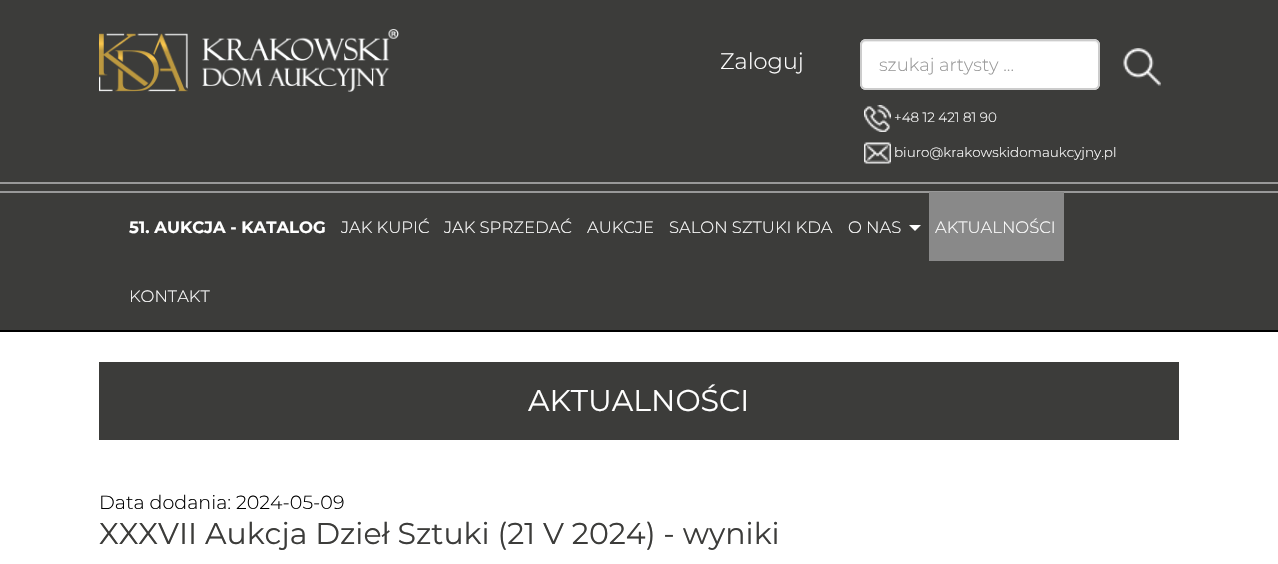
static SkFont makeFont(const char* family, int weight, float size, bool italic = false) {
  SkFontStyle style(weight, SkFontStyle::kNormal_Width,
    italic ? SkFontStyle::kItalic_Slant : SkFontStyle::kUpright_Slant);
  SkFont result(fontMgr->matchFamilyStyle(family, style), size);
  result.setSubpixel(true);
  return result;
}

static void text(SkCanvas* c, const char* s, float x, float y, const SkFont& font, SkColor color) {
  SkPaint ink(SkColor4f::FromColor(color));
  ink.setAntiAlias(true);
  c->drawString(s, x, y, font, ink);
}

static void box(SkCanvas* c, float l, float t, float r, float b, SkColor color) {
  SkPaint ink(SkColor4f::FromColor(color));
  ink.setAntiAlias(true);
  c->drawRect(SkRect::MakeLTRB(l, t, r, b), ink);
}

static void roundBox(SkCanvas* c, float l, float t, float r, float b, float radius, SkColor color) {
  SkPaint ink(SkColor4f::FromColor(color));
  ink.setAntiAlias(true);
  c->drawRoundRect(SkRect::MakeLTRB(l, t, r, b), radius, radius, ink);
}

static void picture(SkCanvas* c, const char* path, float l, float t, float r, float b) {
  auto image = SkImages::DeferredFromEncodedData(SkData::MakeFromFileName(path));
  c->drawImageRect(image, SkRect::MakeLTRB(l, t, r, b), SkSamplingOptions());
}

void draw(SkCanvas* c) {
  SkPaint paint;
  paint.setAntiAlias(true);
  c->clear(0xffffffff);
  box(c, 0, 0, 1278, 182, 0xff3c3c3a);
  picture(c, "img_01.png", 99, 29, 399, 92);
  SkFont face1 = makeFont("Montserrat", 300, 22.5f);
  text(c, "Zaloguj", 720, 69, face1, 0xffffffff);
  roundBox(c, 860, 39, 1100, 90, 6, 0xffffffff);
  paint.setColor(0xffececec);
  c->drawPath(SkPathBuilder().moveTo(866, 42).lineTo(1094, 42).cubicTo(1096, 42, 1098, 44, 1098, 46).cubicTo(1098, 43, 1096, 41, 1093, 41).lineTo(866, 41).cubicTo(863, 41, 861, 43, 861, 46).cubicTo(861, 44, 863, 42, 866, 42).close().detach(), paint);
  paint.setStyle(SkPaint::kStroke_Style);
  paint.setStrokeWidth(2);
  paint.setColor(0xffcccccc);
  c->drawRoundRect(SkRect::MakeLTRB(861, 40, 1099, 89), 5, 5, paint);
  SkFont face2 = makeFont("Montserrat", 300, 18);
  text(c, "szukaj artysty ...", 879, 71, face2, 0xff999999);
  picture(c, "img_02.png", 1123, 48, 1161, 86);
  picture(c, "img_03.png", 864, 105, 891, 132);
  SkFont face3 = makeFont("Montserrat", 300, 13.5f);
  text(c, "+48 12 421 81 90", 894, 122, face3, 0xffffffff);
  picture(c, "img_04.png", 864, 142, 891, 164);
  text(c, "biuro@krakowskidomaukcyjny.pl", 894, 157, face3, 0xffffffff);
  box(c, 0, 184, 1278, 330, 0xff3c3c3a);
  box(c, 0, 182, 1278, 184, 0xff999999);
  box(c, 0, 191, 1278, 193, 0xff999999);
  box(c, 0, 330, 1278, 332, 0xff000000);
  SkFont face4 = makeFont("Montserrat", 700, 16.5f);
  text(c, "51. AUKCJA - KATALOG", 129, 233, face4, 0xffffffff);
  SkFont face5 = makeFont("Montserrat", 300, 16.5f);
  text(c, "JAK KUPIĆ", 341, 233, face5, 0xffffffff);
  text(c, "JAK SPRZEDAĆ", 444, 233, face5, 0xffffffff);
  text(c, "AUKCJE", 587, 233, face5, 0xffffffff);
  text(c, "SALON SZTUKI KDA", 669, 233, face5, 0xffffffff);
  text(c, "O NAS", 848, 233, face5, 0xffffffff);
  paint.setStyle(SkPaint::kFill_Style);
  paint.setColor(0xffffffff);
  c->drawPath(SkPathBuilder().moveTo(909, 225).lineTo(921, 225).lineTo(915, 231).close().detach(), paint);
  box(c, 929, 192, 1064, 261, 0xff898989);
  text(c, "AKTUALNOŚCI", 935, 233, face5, 0xffffffff);
  text(c, "KONTAKT", 129, 302, face5, 0xffffffff);
  box(c, 99, 362, 1179, 440, 0xff3c3c3a);
  SkFont face6 = makeFont("Montserrat", 400, 30);
  text(c, "AKTUALNOŚCI", 528, 411, face6, 0xffffffff);
  SkFont face7 = makeFont("Montserrat", 300, 19.1f);
  text(c, "Data dodania: 2024-05-09", 99, 509, face7, 0xff000000);
  text(c, "XXXVII Aukcja Dzieł Sztuki (21 V 2024) - wyniki", 99, 544, face6, 0xff3c3c3a);
}
